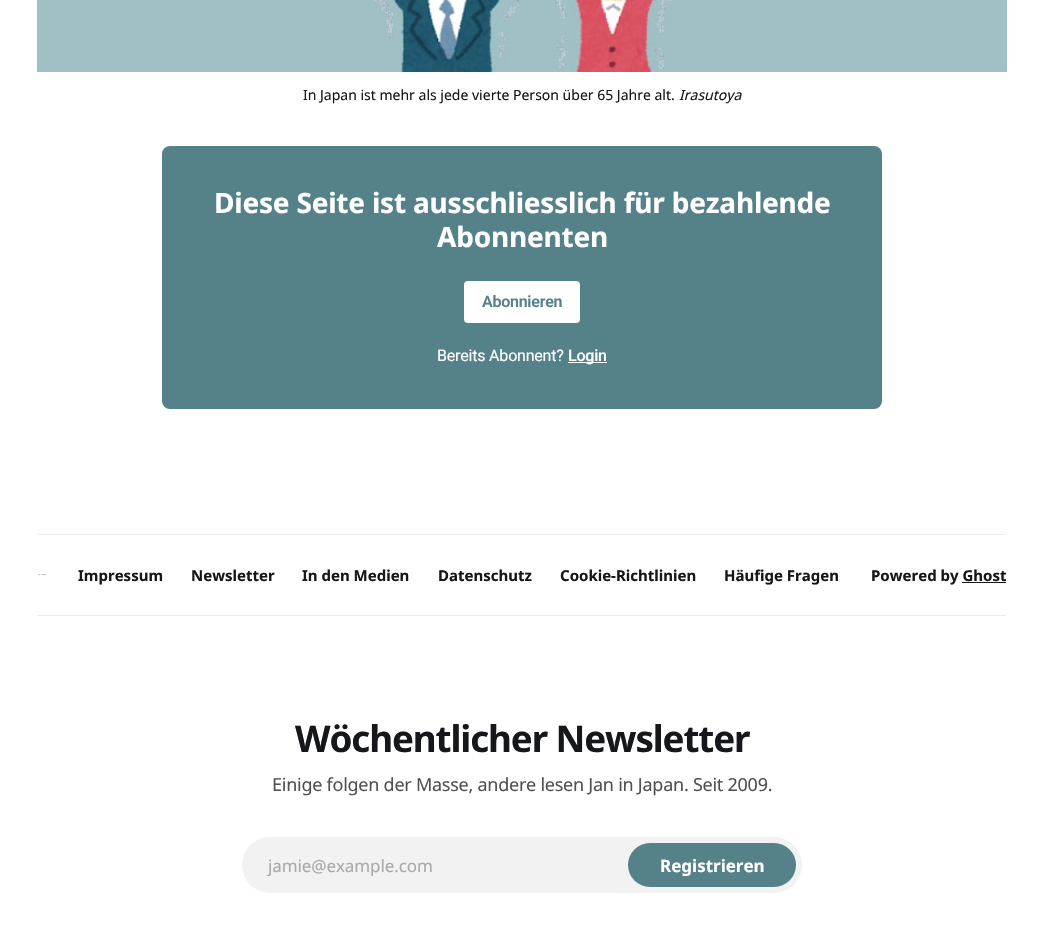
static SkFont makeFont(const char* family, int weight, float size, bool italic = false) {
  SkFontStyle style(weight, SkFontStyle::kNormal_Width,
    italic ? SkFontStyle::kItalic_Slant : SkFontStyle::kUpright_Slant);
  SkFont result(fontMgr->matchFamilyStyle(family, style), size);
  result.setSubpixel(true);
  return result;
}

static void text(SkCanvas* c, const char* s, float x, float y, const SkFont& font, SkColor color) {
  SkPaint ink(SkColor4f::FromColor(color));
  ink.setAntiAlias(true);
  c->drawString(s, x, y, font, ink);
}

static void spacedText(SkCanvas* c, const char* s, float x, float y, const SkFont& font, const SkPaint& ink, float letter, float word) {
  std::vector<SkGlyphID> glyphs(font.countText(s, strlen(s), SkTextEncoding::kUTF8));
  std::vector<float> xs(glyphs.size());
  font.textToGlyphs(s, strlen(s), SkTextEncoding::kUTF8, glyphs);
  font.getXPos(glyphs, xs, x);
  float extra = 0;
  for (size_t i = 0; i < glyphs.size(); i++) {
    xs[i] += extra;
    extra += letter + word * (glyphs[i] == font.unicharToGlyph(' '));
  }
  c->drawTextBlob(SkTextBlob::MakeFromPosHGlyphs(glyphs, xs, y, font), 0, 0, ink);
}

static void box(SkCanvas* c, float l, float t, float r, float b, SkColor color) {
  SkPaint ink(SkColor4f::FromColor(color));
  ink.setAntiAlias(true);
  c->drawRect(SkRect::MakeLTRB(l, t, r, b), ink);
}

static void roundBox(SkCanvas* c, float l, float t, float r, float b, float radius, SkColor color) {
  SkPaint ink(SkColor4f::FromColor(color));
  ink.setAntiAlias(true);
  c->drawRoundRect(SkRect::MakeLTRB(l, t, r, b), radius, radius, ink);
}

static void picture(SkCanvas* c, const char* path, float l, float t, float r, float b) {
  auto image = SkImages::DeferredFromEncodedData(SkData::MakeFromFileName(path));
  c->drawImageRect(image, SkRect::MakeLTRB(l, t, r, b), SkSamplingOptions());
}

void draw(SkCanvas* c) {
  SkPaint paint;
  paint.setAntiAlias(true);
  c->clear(0xffffffff);
  picture(c, "img_01.png", 37, 0, 1007, 72);
  SkFont face1 = makeFont("Noto Sans", 400, 14);
  text(c, "In Japan ist mehr als jede vierte Person über 65 Jahre alt.", 303, 100, face1, 0xff15171a);
  SkFont face2 = makeFont("Noto Sans", 400, 14, true);
  text(c, "Irasutoya", 679, 100, face2, 0xff15171a);
  roundBox(c, 162, 146, 882, 409, 8, 0xff558189);
  SkFont face3 = makeFont("Noto Sans", 700, 28);
  paint.setColor(0xffffffff);
  spacedText(c, "Diese Seite ist ausschliesslich für bezahlende", 214, 213, face3, paint, -0.2f, 0);
  spacedText(c, "Abonnenten", 437, 247, face3, paint, -0.2f, 0);
  roundBox(c, 464, 281, 580, 323, 4, 0xffffffff);
  SkFont face4 = makeFont("Roboto", 600, 16);
  paint.setColor(0xff558189);
  spacedText(c, "Abonnieren", 482, 307, face4, paint, -0.25f, 0);
  SkFont face5 = makeFont("Roboto", 400, 16);
  paint.setColor(0xffffffff);
  spacedText(c, "Bereits Abonnent?", 437, 361, face5, paint, -0.2f, 0);
  box(c, 568, 362, 607, 363, 0xffffffff);
  SkFont face6 = makeFont("Roboto", 500, 16);
  spacedText(c, "Login", 568, 361, face6, paint, -0.2f, 0);
  box(c, 38, 534, 1006, 535, 0xffebebeb);
  box(c, 38, 615, 1006, 616, 0xffebebeb);
  picture(c, "img_02.png", 38, 574, 46, 576);
  SkFont face7 = makeFont("Noto Sans", 700, 15);
  text(c, "Impressum", 78, 581, face7, 0xff15171a);
  text(c, "Newsletter", 191, 581, face7, 0xff15171a);
  text(c, "In den Medien", 302, 581, face7, 0xff15171a);
  text(c, "Datenschutz", 438, 581, face7, 0xff15171a);
  text(c, "Cookie-Richtlinien", 560, 581, face7, 0xff15171a);
  text(c, "Häufige Fragen", 724, 581, face7, 0xff15171a);
  text(c, "Powered by Ghost", 871, 581, face7, 0xff15171a);
  box(c, 962, 582, 1006, 583, 0xff15171a);
  SkFont face8 = makeFont("Noto Sans", 700, 36.75f);
  paint.setColor(0xff15171a);
  spacedText(c, "Wöchentlicher Newsletter", 295, 752, face8, paint, -1.1f, 0);
  SkFont face9 = makeFont("Noto Sans", 400, 18);
  paint.setColor(0xff505153);
  spacedText(c, "Einige folgen der Masse, andere lesen Jan in Japan. Seit 2009.", 272, 791, face9, paint, -0.25f, 0);
  roundBox(c, 242, 837, 802, 893, 28, 0xfff2f2f2);
  SkFont face10 = makeFont("Noto Sans", 400, 17);
  paint.setColor(0xffa9a9a9);
  spacedText(c, "jamie@example.com", 268, 872, face10, paint, -0.1f, 0);
  roundBox(c, 628, 843, 796, 887, 22, 0xff558189);
  SkFont face11 = makeFont("Noto Sans", 700, 17);
  text(c, "Registrieren", 660, 872, face11, 0xffffffff);
}
